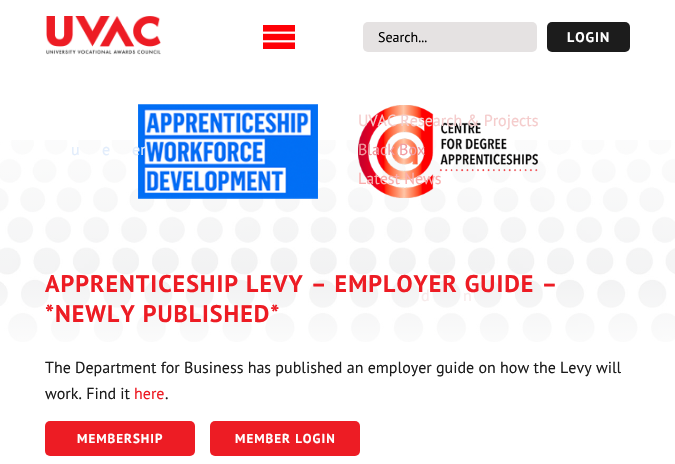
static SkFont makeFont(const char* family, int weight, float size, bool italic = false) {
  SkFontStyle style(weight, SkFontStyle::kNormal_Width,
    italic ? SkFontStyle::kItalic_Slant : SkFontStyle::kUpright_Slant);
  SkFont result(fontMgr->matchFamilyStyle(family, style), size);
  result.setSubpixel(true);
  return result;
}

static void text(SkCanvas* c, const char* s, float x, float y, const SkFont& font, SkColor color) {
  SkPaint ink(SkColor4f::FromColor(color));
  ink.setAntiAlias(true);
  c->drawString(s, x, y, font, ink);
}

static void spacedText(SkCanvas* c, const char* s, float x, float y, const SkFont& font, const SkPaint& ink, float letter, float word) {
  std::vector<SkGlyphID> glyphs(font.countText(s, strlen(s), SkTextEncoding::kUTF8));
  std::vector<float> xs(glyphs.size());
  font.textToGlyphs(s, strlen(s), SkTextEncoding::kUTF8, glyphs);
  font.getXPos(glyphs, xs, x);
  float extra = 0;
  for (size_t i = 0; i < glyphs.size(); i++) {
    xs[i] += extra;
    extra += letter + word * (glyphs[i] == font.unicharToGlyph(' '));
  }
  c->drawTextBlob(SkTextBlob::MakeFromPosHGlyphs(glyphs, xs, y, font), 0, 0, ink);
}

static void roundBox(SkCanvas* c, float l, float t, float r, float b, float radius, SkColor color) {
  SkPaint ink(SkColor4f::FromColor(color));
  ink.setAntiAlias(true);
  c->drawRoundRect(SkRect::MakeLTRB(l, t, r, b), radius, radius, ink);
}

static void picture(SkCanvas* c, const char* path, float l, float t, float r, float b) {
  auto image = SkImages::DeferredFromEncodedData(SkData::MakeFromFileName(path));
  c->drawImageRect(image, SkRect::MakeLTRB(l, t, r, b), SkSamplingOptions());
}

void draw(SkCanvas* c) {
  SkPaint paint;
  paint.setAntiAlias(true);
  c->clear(0xffffffff);
  picture(c, "img_01.png", 46, 16, 161, 55);
  roundBox(c, 363, 22, 537, 52, 5, 0xffe5e2e2);
  SkFont face1 = makeFont("PT Sans", 400, 14);
  text(c, "Search...", 378, 42, face1, 0xff000000);
  roundBox(c, 547, 22, 630, 52, 5, 0xff1c1c1c);
  SkFont face2 = makeFont("PT Sans", 700, 14);
  paint.setColor(0xffffffff);
  spacedText(c, "LOGIN", 567, 42, face2, paint, 1, 0);
  picture(c, "img_02.png", 263, 25, 295, 49);
  picture(c, "img_05.png", 0, 140, 675, 342);
  SkFont face3 = makeFont("PT Sans", 400, 16);
  text(c, "u", 71, 155, face3, 0xffe2edfc);
  text(c, "e", 102, 155, face3, 0xffe2edfc);
  picture(c, "img_03.png", 138, 104, 318, 199);
  text(c, "er", 132, 155, face3, 0xffe2edfc);
  picture(c, "img_04.png", 358, 105, 538, 198);
  text(c, "UVAC Research & Projects", 358, 126, face3, 0xfff5cccc);
  text(c, "Black Box", 358, 155, face3, 0xfff29ba0);
  text(c, "Latest News", 358, 184, face3, 0xfff9aead);
  text(c, "d", 421, 301, face3, 0xfff7ebeb);
  text(c, "n", 463, 301, face3, 0xfff7ebeb);
  SkFont face4 = makeFont("PT Sans", 700, 24);
  paint.setColor(0xffed1c24);
  spacedText(c, "APPRENTICESHIP LEVY – EMPLOYER GUIDE –", 45, 292, face4, paint, 1, 0);
  spacedText(c, "*NEWLY PUBLISHED*", 45, 322, face4, paint, 1, 0);
  text(c, "The Department for Business has published an employer guide on how the Levy will", 45, 373, face3, 0xff1c1c1c);
  text(c, "work. Find it", 45, 399, face3, 0xff1c1c1c);
  text(c, "here", 134, 399, face3, 0xffed1c24);
  text(c, ".", 165, 399, face3, 0xff1c1c1c);
  roundBox(c, 45, 421, 195, 456, 5, 0xffed1c24);
  SkFont face5 = makeFont("PT Sans", 700, 13);
  paint.setColor(0xffffffff);
  spacedText(c, "MEMBERSHIP", 77, 443, face5, paint, 1, 0);
  roundBox(c, 210, 421, 360, 456, 5, 0xffed1c24);
  spacedText(c, "MEMBER LOGIN", 235, 443, face5, paint, 1, 0);
}
